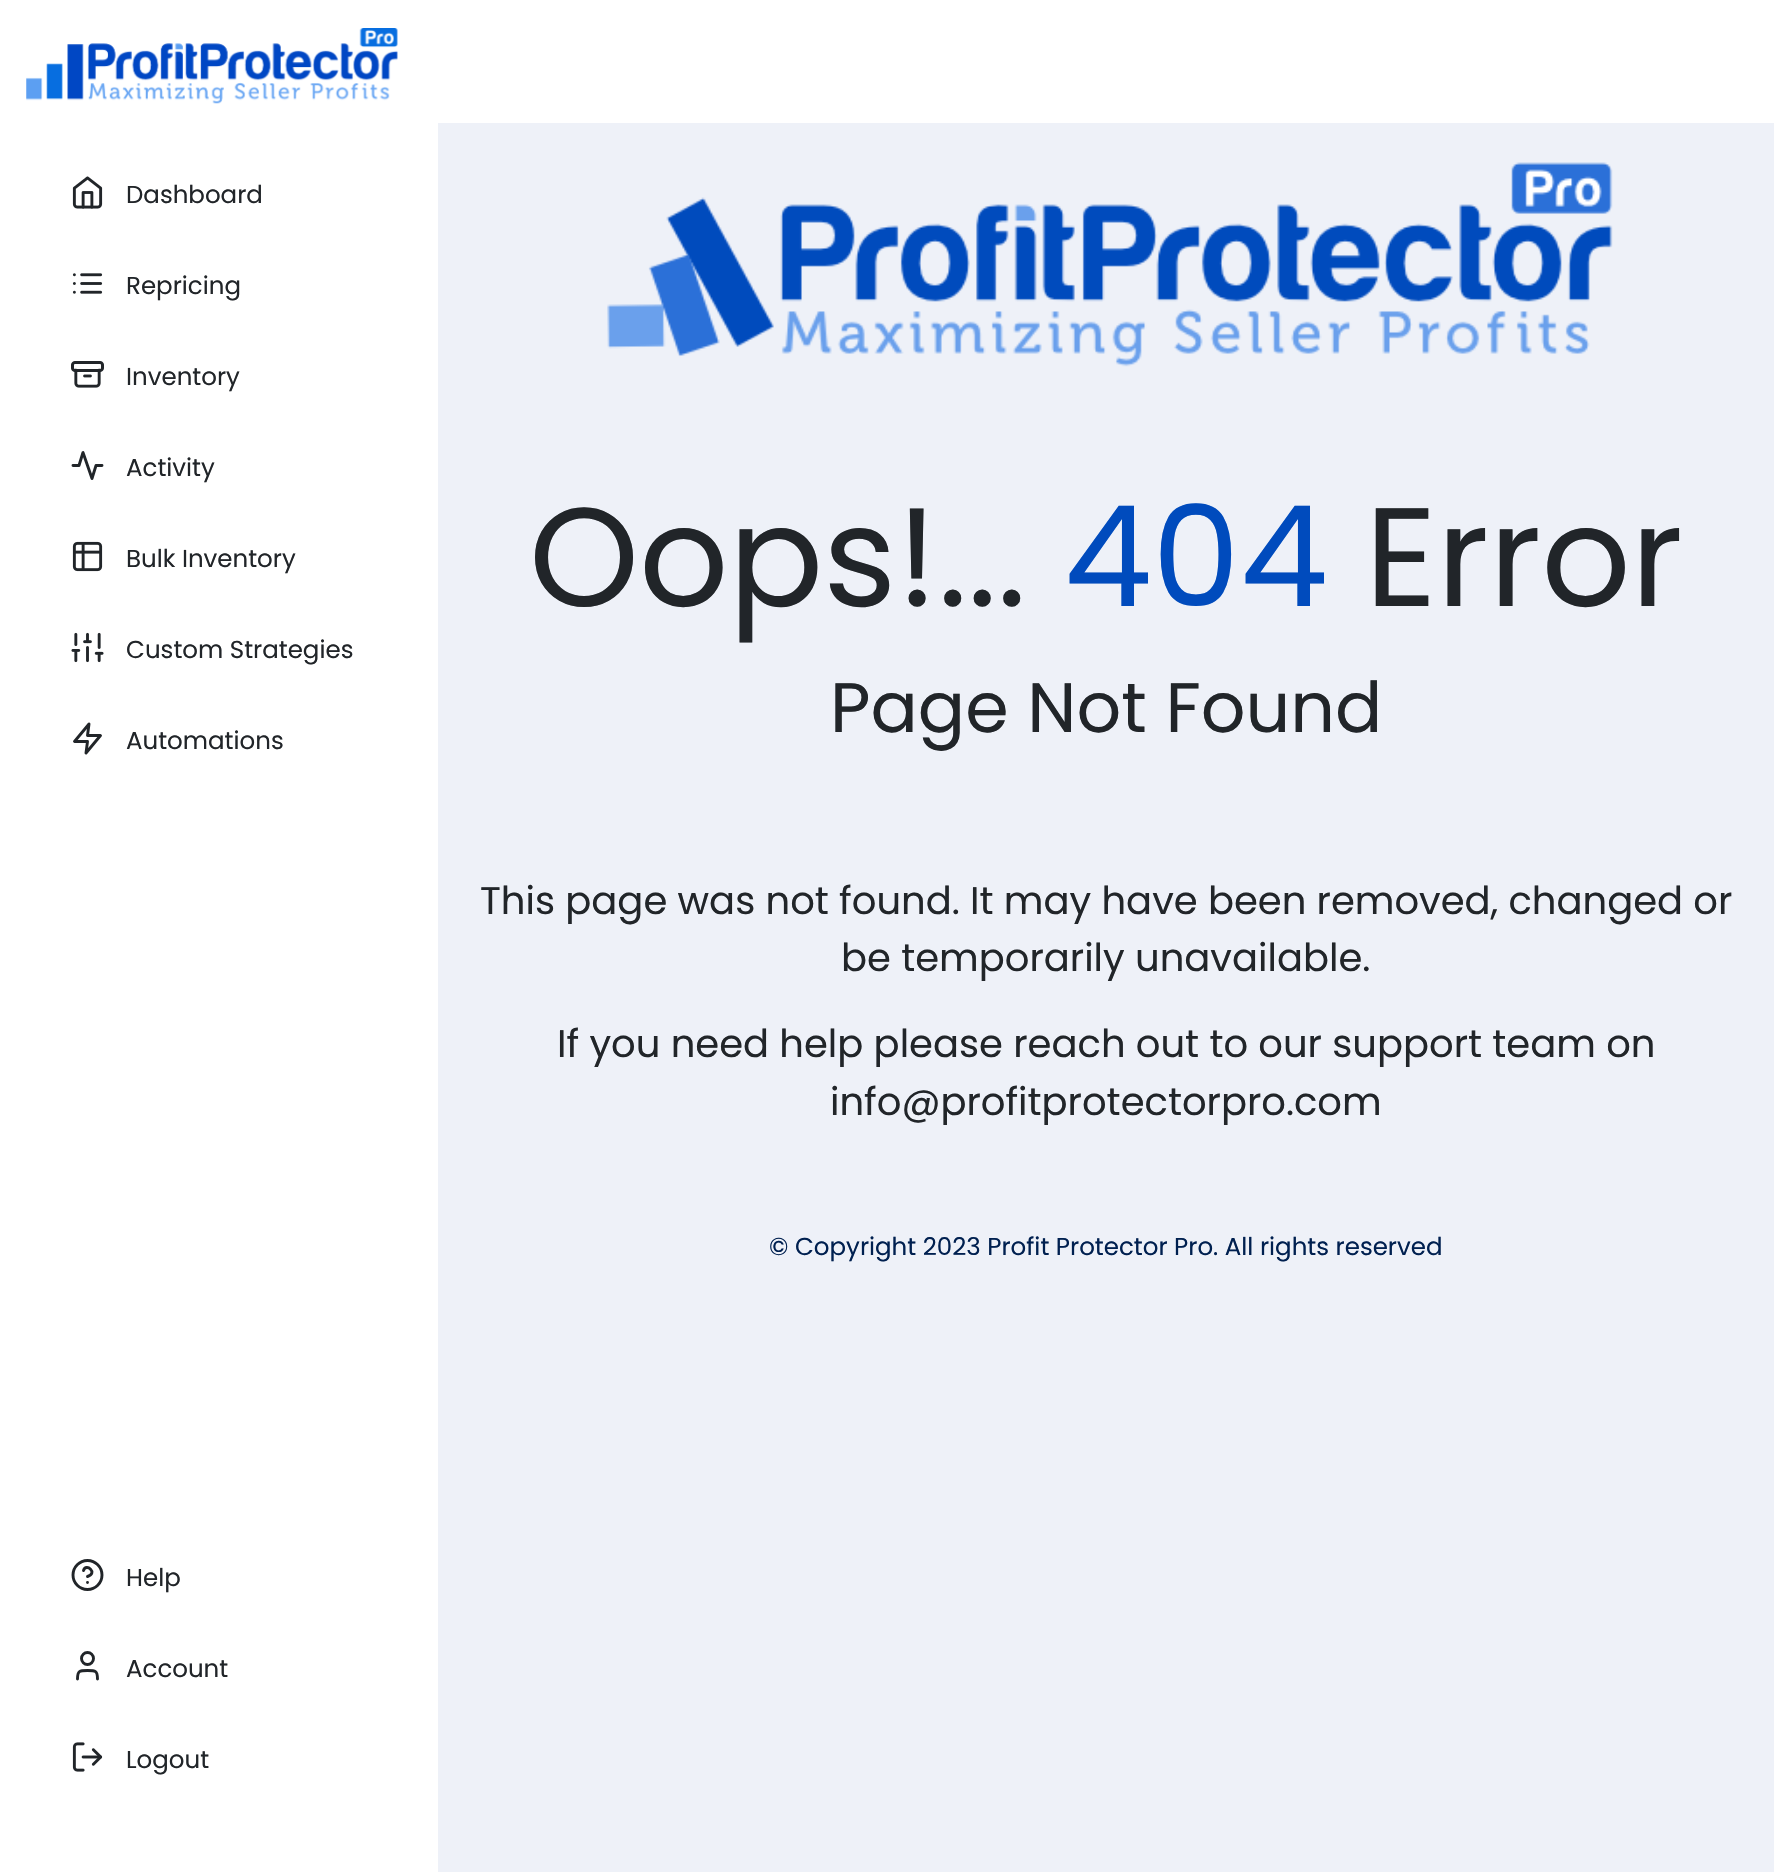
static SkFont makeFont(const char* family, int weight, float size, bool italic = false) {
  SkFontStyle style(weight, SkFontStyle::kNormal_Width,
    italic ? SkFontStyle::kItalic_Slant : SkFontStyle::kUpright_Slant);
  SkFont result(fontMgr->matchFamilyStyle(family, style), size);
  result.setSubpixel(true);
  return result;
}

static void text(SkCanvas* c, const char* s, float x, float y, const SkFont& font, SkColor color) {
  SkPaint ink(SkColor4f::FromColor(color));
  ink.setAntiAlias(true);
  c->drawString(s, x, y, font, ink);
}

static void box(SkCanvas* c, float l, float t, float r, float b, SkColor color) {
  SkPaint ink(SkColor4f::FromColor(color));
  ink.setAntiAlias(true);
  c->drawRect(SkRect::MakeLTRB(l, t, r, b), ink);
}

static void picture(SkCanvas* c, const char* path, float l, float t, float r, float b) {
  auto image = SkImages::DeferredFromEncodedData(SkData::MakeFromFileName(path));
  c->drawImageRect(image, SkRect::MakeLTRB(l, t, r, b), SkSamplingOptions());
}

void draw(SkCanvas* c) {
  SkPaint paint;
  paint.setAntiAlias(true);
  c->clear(0xffeef1f8);
  box(c, 0, 0, 1774, 123, 0xffffffff);
  picture(c, "img_01.png", 26, 28, 398, 104);
  box(c, 0, 123, 438, 1872, 0xffffffff);
  picture(c, "img_02.png", 72, 176, 103, 209);
  SkFont face1 = makeFont("Poppins", 400, 24.5f);
  text(c, "Dashboard", 126, 203, face1, 0xff212529);
  picture(c, "img_03.png", 72, 273, 103, 294);
  text(c, "Repricing", 126, 294, face1, 0xff212529);
  picture(c, "img_04.png", 71, 361, 104, 388);
  text(c, "Inventory", 126, 385, face1, 0xff212529);
  paint.setStyle(SkPaint::kStroke_Style);
  paint.setStrokeWidth(2.9f);
  paint.setStrokeCap(SkPaint::kRound_Cap);
  paint.setStrokeJoin(SkPaint::kRound_Join);
  paint.setColor(0xff212529);
  c->drawPath(SkPathBuilder().moveTo(102, 465.5f).lineTo(96, 465.5f).lineTo(92, 478.5f).lineTo(83, 452.5f).lineTo(79, 465.5f).lineTo(73, 465.5f).detach(), paint);
  text(c, "Activity", 126, 476, face1, 0xff212529);
  picture(c, "img_05.png", 72, 541, 103, 572);
  text(c, "Bulk Inventory", 126, 567, face1, 0xff212529);
  picture(c, "img_06.png", 71, 632, 104, 663);
  text(c, "Custom Strategies", 126, 658, face1, 0xff212529);
  c->drawPath(SkPathBuilder().moveTo(89, 724).lineTo(74.5f, 741.5f).lineTo(87.5f, 741.5f).lineTo(86, 753).lineTo(100.5f, 735.5f).lineTo(87.5f, 735.5f).close().detach(), paint);
  text(c, "Automations", 126, 749, face1, 0xff212529);
  paint.setStrokeCap(SkPaint::kButt_Cap);
  paint.setStrokeJoin(SkPaint::kMiter_Join);
  c->drawCircle(87.5f, 1575, 14.5f, paint);
  paint.setStrokeCap(SkPaint::kRound_Cap);
  paint.setStrokeJoin(SkPaint::kRound_Join);
  c->drawPath(SkPathBuilder().moveTo(83.5f, 1570.5f).cubicTo(86, 1562.5f, 98.5f, 1573, 87.5f, 1576.5f).moveTo(87.5f, 1582.5f).lineTo(87.5f, 1582.5f).detach(), paint);
  text(c, "Help", 126, 1586, face1, 0xff212529);
  paint.setStrokeCap(SkPaint::kButt_Cap);
  paint.setStrokeJoin(SkPaint::kMiter_Join);
  c->drawCircle(87.5f, 1658.5f, 6, paint);
  paint.setStrokeCap(SkPaint::kRound_Cap);
  paint.setStrokeJoin(SkPaint::kRound_Join);
  c->drawPath(SkPathBuilder().moveTo(97.5f, 1679).cubicTo(97.5f, 1670.5f, 95.5f, 1670.5f, 87.5f, 1670.5f).cubicTo(79.5f, 1670.5f, 77.5f, 1670.5f, 77.5f, 1679).detach(), paint);
  text(c, "Account", 126, 1677, face1, 0xff212529);
  picture(c, "img_07.png", 72, 1742, 103, 1772);
  text(c, "Logout", 126, 1768, face1, 0xff212529);
  picture(c, "img_08.png", 607, 162, 1613, 367);
  SkFont face2 = makeFont("Poppins", 400, 140);
  text(c, "Oops!...", 529, 606, face2, 0xff212529);
  text(c, "404", 1064, 606, face2, 0xff004bbd);
  text(c, "Error", 1365, 606, face2, 0xff212529);
  SkFont face3 = makeFont("Poppins", 400, 70);
  text(c, "Page Not Found", 830, 732, face3, 0xff212529);
  SkFont face4 = makeFont("Poppins", 400, 38.5f);
  text(c, "This page was not found. It may have been removed, changed or", 480, 914, face4, 0xff212529);
  text(c, "be temporarily unavailable.", 841, 971, face4, 0xff212529);
  text(c, "If you need help please reach out to our support team on", 557, 1057, face4, 0xff212529);
  text(c, "info@profitprotectorpro.com", 830, 1115, face4, 0xff212529);
  text(c, "© Copyright 2023 Profit Protector Pro. All rights reserved", 769, 1255, face1, 0xff002050);
}
